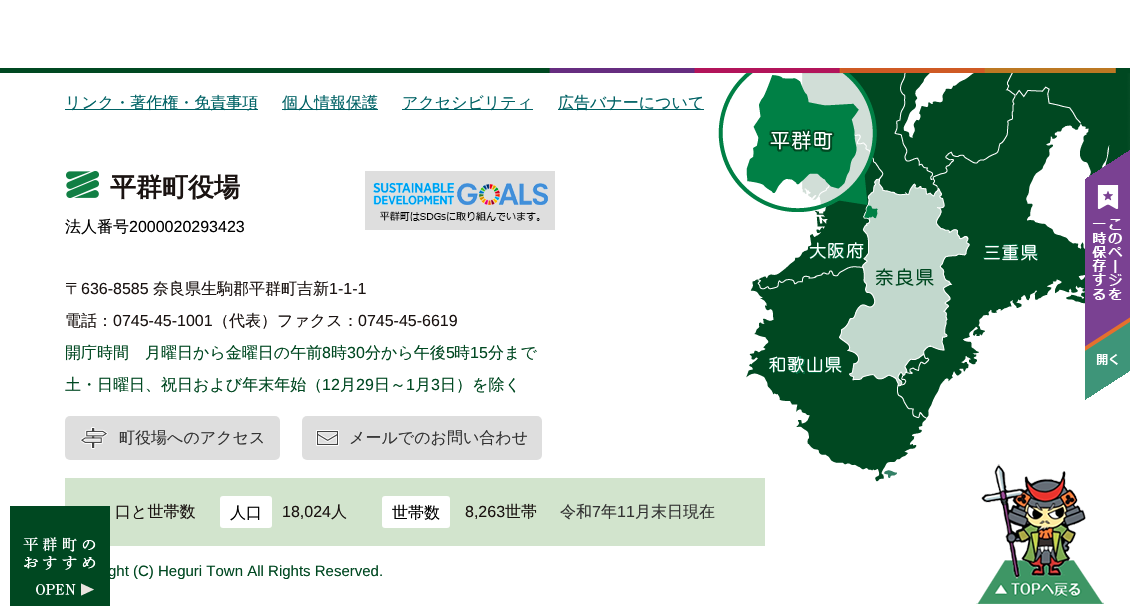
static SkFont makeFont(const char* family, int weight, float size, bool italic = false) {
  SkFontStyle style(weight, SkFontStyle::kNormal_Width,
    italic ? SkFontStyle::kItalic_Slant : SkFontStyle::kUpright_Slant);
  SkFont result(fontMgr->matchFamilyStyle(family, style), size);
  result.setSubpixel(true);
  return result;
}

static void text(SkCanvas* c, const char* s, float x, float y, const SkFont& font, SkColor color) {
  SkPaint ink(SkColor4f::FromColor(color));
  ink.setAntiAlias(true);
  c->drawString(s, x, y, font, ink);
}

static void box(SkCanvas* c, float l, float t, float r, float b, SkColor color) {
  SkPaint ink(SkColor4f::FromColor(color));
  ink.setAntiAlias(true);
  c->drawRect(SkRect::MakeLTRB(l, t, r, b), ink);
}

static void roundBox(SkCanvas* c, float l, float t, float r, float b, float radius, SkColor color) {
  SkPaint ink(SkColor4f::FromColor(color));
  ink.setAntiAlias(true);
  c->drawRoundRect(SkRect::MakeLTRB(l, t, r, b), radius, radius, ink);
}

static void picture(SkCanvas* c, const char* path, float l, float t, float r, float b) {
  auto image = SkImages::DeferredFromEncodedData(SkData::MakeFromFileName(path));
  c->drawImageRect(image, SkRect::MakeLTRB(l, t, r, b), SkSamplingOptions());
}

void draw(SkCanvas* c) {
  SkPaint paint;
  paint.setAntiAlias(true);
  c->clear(0xffffffff);
  picture(c, "img_01.png", 718, 73, 1130, 482);
  picture(c, "img_02.png", 0, 68, 1130, 73);
  box(c, 65, 109, 258, 110, 0xff006265);
  SkFont face1 = makeFont("WenQuanYi Zen Hei", 500, 16);
  text(c, "リンク・著作権・免責事項", 65, 108, face1, 0xff006265);
  box(c, 282, 109, 378, 110, 0xff006265);
  text(c, "個人情報保護", 282, 108, face1, 0xff006265);
  box(c, 402, 109, 533, 110, 0xff006265);
  text(c, "アクセシビリティ", 402, 108, face1, 0xff006265);
  box(c, 558, 109, 704, 110, 0xff006265);
  text(c, "広告バナーについて", 558, 108, face1, 0xff006265);
  box(c, 65, 478, 765, 546, 0xffd2e4cd);
  box(c, 10, 506, 110, 606, 0xff004821);
  picture(c, "img_03.png", 23, 537, 96, 596);
  picture(c, "img_04.png", 66, 171, 99, 198);
  SkFont face2 = makeFont("WenQuanYi Zen Hei", 700, 26);
  text(c, "平群町役場", 110, 196, face2, 0xff1a1311);
  text(c, "法人番号", 65, 232, face1, 0xff000000);
  SkFont face3 = makeFont("Liberation Sans", 400, 16);
  text(c, "2000020293423", 129, 232, face3, 0xff000000);
  picture(c, "img_05.png", 365, 171, 555, 230);
  text(c, "〒", 65, 294, face1, 0xff1a1311);
  text(c, "636-8585", 81, 294, face3, 0xff1a1311);
  text(c, "奈良県生駒郡平群町吉新", 153, 294, face1, 0xff1a1311);
  text(c, "1-1-1", 329, 294, face3, 0xff1a1311);
  text(c, "電話：", 65, 326, face1, 0xff1a1311);
  text(c, "0745-45-1001", 113, 326, face3, 0xff1a1311);
  text(c, "（代表）ファクス：", 213, 326, face1, 0xff1a1311);
  text(c, "0745-45-6619", 358, 326, face3, 0xff1a1311);
  text(c, "開庁時間　月曜日から金曜日の午前", 65, 358, face1, 0xff004821);
  text(c, "8", 322, 358, face3, 0xff004821);
  text(c, "時", 331, 358, face1, 0xff004821);
  text(c, "30", 347, 358, face3, 0xff004821);
  text(c, "分から午後", 365, 358, face1, 0xff004821);
  text(c, "5", 446, 358, face3, 0xff004821);
  text(c, "時", 454, 358, face1, 0xff004821);
  text(c, "15", 470, 358, face3, 0xff004821);
  text(c, "分まで", 488, 358, face1, 0xff004821);
  text(c, "土・日曜日、祝日および年末年始（", 65, 390, face1, 0xff004821);
  text(c, "12", 322, 390, face3, 0xff004821);
  text(c, "月", 340, 390, face1, 0xff004821);
  text(c, "29", 356, 390, face3, 0xff004821);
  text(c, "日～", 374, 390, face1, 0xff004821);
  text(c, "1", 406, 390, face3, 0xff004821);
  text(c, "月", 415, 390, face1, 0xff004821);
  text(c, "3", 431, 390, face3, 0xff004821);
  text(c, "日）を除く", 440, 390, face1, 0xff004821);
  roundBox(c, 65, 416, 280, 460, 5, 0xffdedede);
  picture(c, "img_06.png", 80, 427, 108, 449);
  text(c, "町役場へのアクセス", 119, 443, face1, 0xff333333);
  roundBox(c, 302, 416, 542, 460, 5, 0xffdedede);
  picture(c, "img_07.png", 316, 430, 339, 446);
  text(c, "メールでのお問い合わせ", 349, 443, face1, 0xff333333);
  text(c, "口と世帯数", 115, 517, face1, 0xff1a1311);
  roundBox(c, 220, 496, 272, 528, 3, 0xffffffff);
  text(c, "人口", 230, 518, face1, 0xff000000);
  text(c, "18,024", 282, 517, face3, 0xff1a1311);
  text(c, "人", 331, 517, face1, 0xff1a1311);
  roundBox(c, 382, 496, 450, 528, 3, 0xffffffff);
  text(c, "世帯数", 392, 518, face1, 0xff000000);
  text(c, "8,263", 465, 517, face3, 0xff1a1311);
  text(c, "世帯", 505, 517, face1, 0xff1a1311);
  text(c, "令和", 560, 517, face1, 0xff333333);
  text(c, "7", 592, 517, face3, 0xff333333);
  text(c, "年", 601, 517, face1, 0xff333333);
  text(c, "11", 617, 517, face3, 0xff333333);
  text(c, "月末日現在", 635, 517, face1, 0xff333333);
  SkFont face4 = makeFont("Liberation Sans", 400, 15);
  text(c, "ght (C) Heguri Town All Rights Reserved.", 108, 576, face4, 0xff004821);
  picture(c, "img_08.png", 976, 464, 1104, 604);
  picture(c, "img_09.png", 1085, 150, 1130, 400);
}
